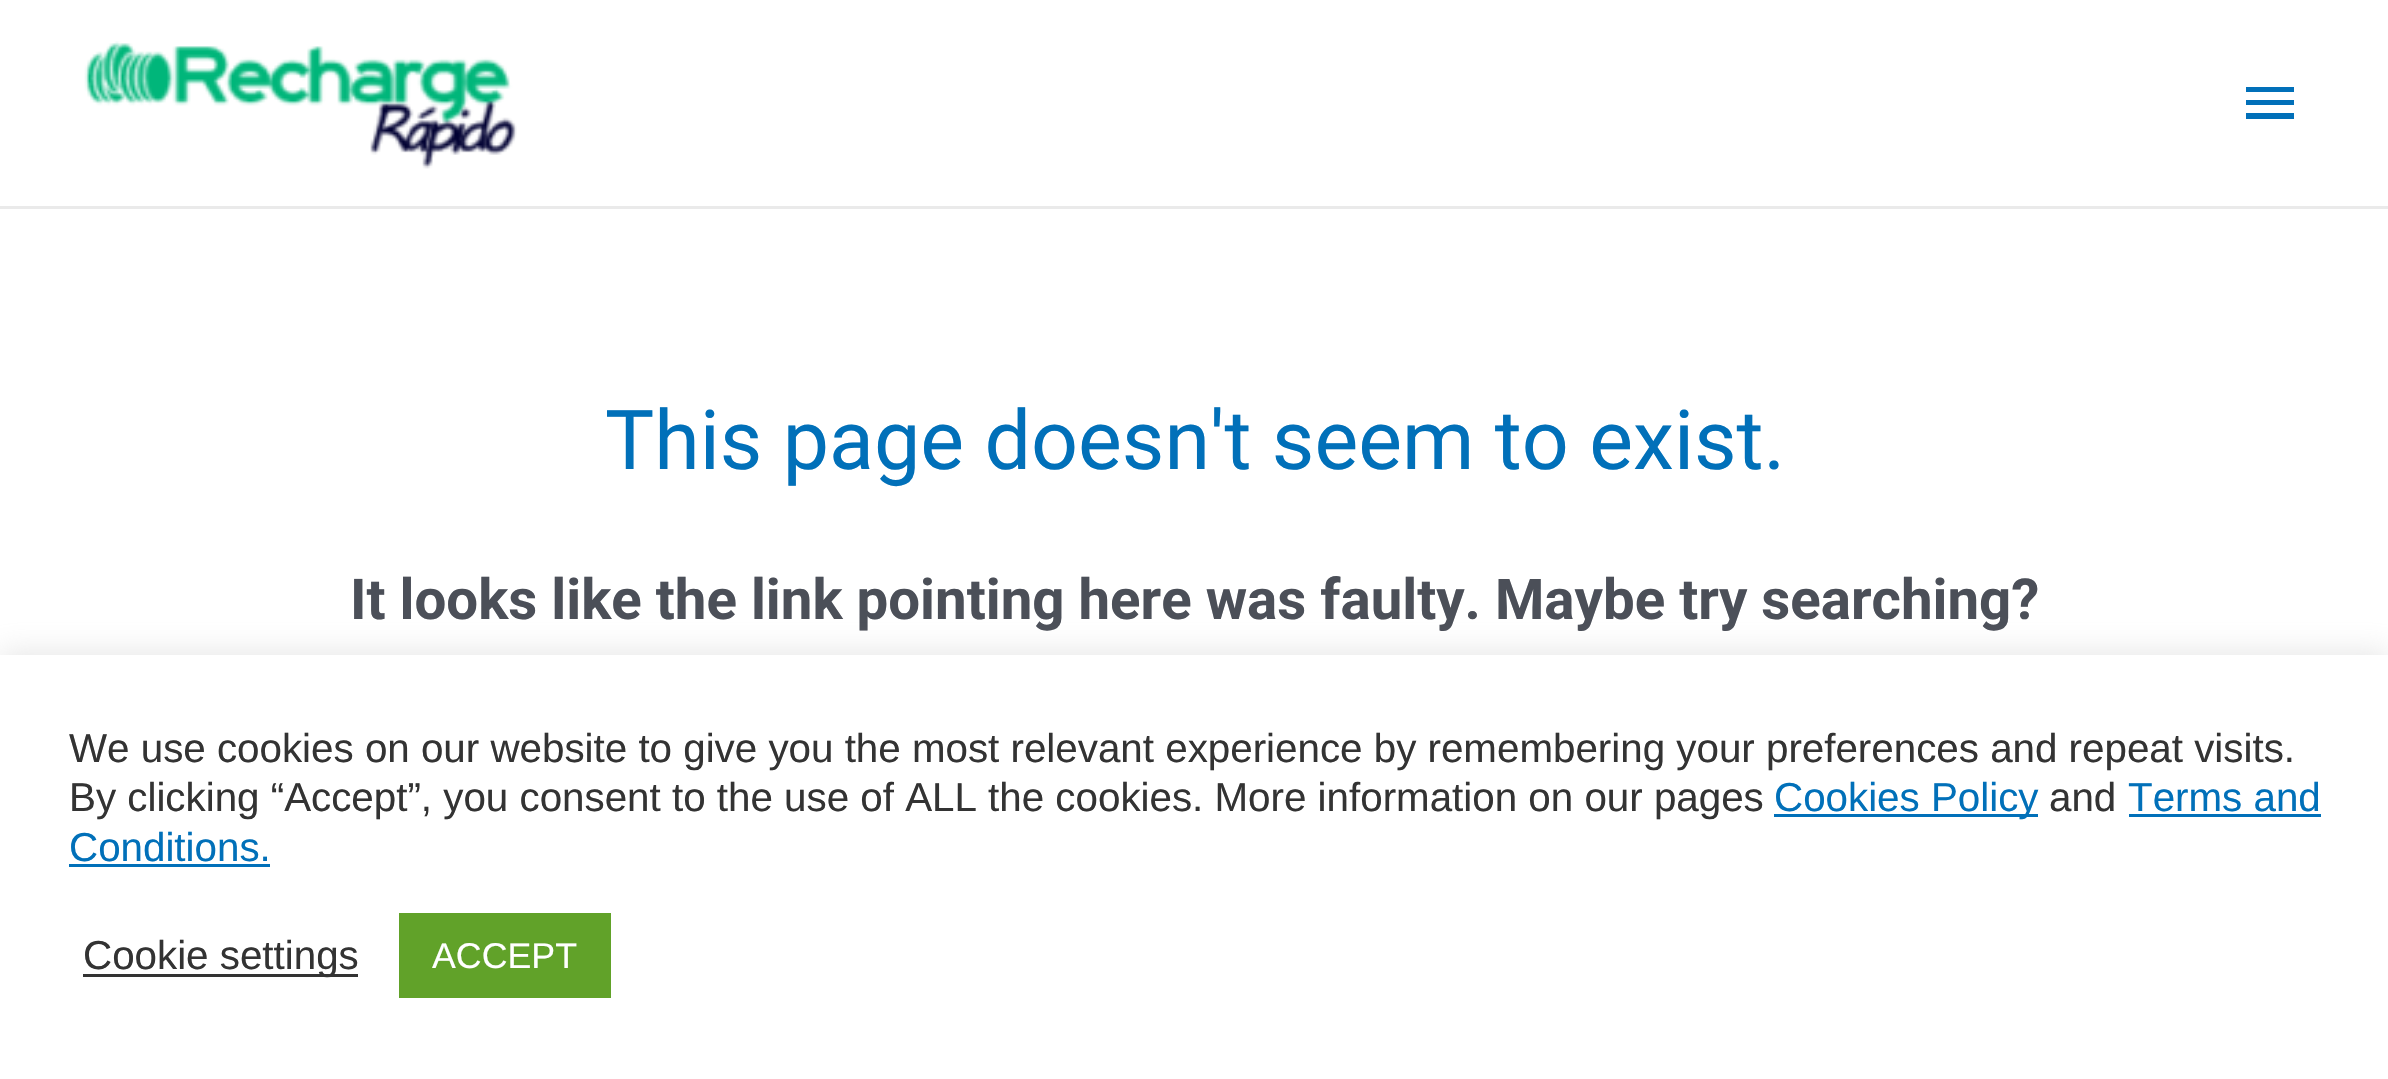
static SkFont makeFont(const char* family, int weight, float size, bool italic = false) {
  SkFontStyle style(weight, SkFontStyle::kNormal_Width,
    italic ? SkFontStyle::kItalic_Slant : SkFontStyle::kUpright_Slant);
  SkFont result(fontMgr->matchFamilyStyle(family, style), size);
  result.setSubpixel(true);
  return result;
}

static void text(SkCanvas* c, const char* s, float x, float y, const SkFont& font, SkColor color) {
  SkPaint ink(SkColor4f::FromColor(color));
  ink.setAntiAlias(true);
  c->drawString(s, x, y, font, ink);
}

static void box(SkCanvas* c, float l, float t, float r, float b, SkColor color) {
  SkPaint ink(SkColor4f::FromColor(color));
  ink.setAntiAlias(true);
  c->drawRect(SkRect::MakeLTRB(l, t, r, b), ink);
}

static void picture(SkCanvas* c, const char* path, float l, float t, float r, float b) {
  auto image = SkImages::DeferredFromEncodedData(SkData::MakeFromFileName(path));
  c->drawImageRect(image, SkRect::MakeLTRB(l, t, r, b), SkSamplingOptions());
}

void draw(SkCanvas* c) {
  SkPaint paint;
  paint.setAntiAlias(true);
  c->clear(0xffffffff);
  box(c, 0, 206, 2388, 209, 0xffeaeaea);
  picture(c, "img_01.png", 84, 41, 517, 169);
  paint.setColor(0xff0170b9);
  c->drawPath(SkPathBuilder().moveTo(2246, 87).lineTo(2294, 87).lineTo(2294, 92).lineTo(2246, 92).close().moveTo(2246, 105).lineTo(2246, 100).lineTo(2294, 100).lineTo(2294, 105).close().moveTo(2246, 119).lineTo(2246, 113).lineTo(2294, 113).lineTo(2294, 119).close().detach(), paint);
  SkFont face1 = makeFont("Roboto", 400, 82.5f);
  text(c, "This page doesn't seem to exist.", 605, 469, face1, 0xff0170b9);
  SkFont face2 = makeFont("Roboto", 700, 56.4f);
  text(c, "It looks like the link pointing here was faulty. Maybe try searching?", 350, 619, face2, 0xff4b4f58);
  paint.setColor(0x4dacabab);
  paint.setMaskFilter(SkMaskFilter::MakeBlur(kNormal_SkBlurStyle, 14));
  c->drawRect(SkRect::MakeLTRB(0, 652, 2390, 1078), paint);
  paint.setMaskFilter(nullptr);
  box(c, 0, 655, 2388, 1079, 0xffffffff);
  SkFont face3 = makeFont("Liberation Sans", 400, 40.33f);
  text(c, "We use cookies on our website to give you the most relevant experience by remembering your preferences and repeat visits.", 69, 762, face3, 0xff333333);
  text(c, "By clicking “Accept”, you consent to the use of ALL the cookies. More information on our pages", 69, 811, face3, 0xff333333);
  box(c, 1774, 814, 2038, 817, 0xff0170b9);
  text(c, "Cookies Policy", 1774, 811, face3, 0xff0170b9);
  text(c, "and", 2049, 811, face3, 0xff333333);
  text(c, "Terms and", 2128, 811, face3, 0xff0170b9);
  box(c, 2129, 814, 2321, 817, 0xff0170b9);
  text(c, "Conditions.", 69, 861, face3, 0xff0170b9);
  box(c, 69, 864, 270, 867, 0xff0170b9);
  box(c, 83, 974, 358, 977, 0xff333333);
  text(c, "Cookie settings", 83, 969, face3, 0xff333333);
  box(c, 399, 913, 611, 998, 0xff61a229);
  SkFont face4 = makeFont("Liberation Sans", 400, 35.75f);
  text(c, "ACCEPT", 432, 968, face4, 0xffffffff);
}
